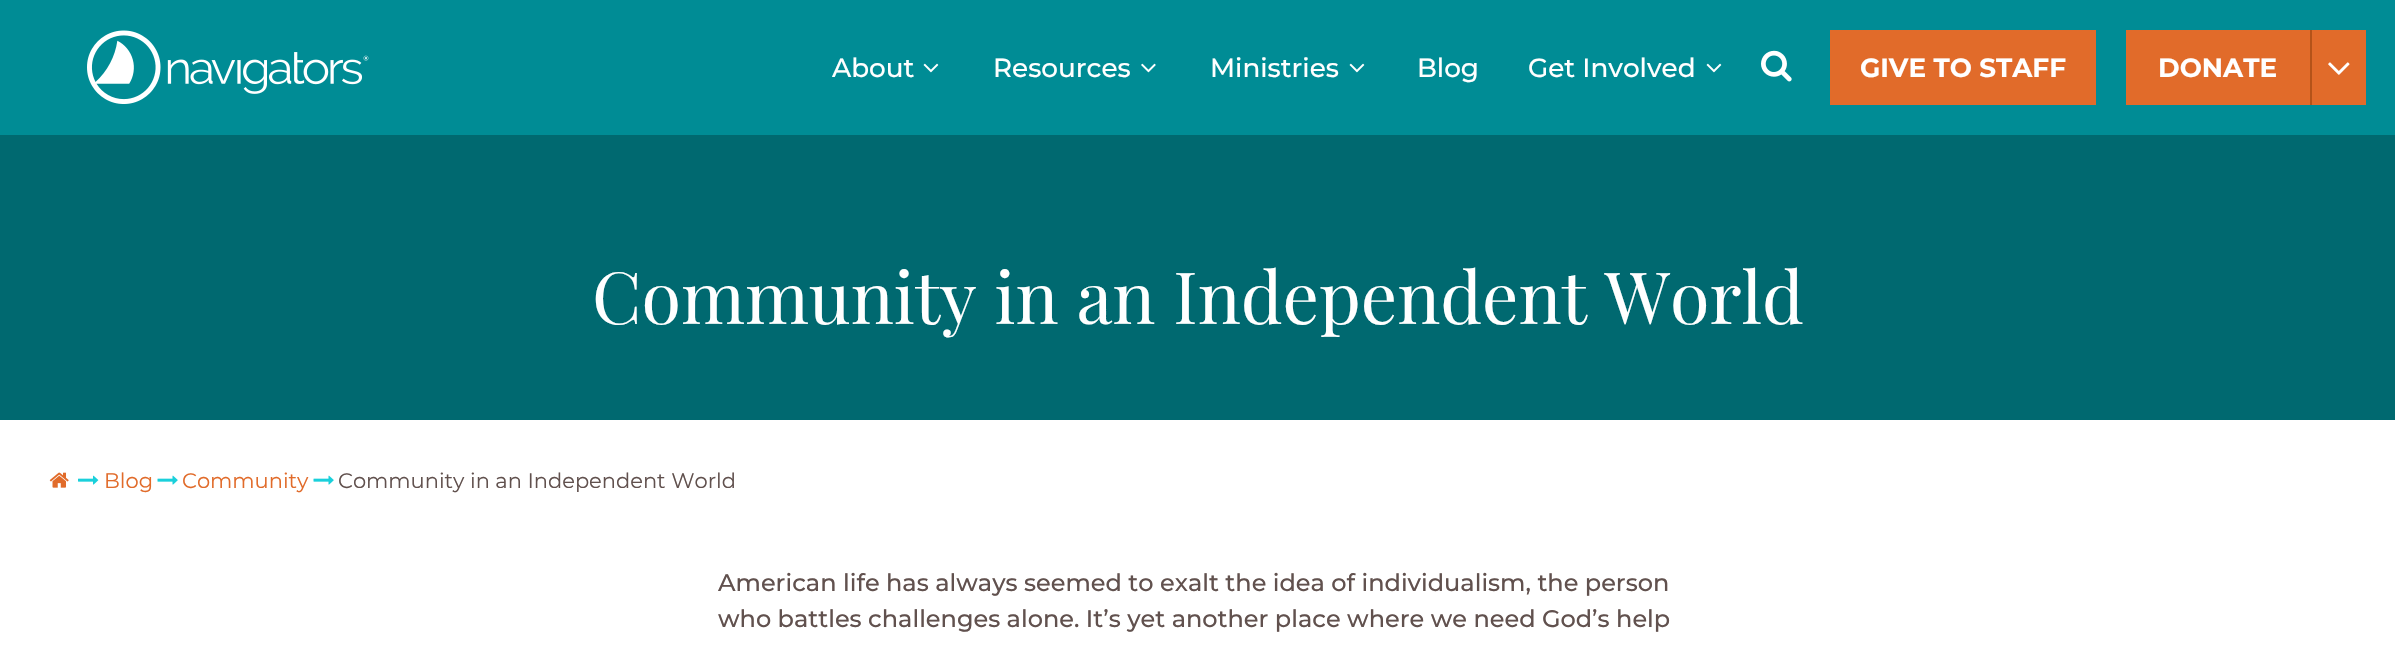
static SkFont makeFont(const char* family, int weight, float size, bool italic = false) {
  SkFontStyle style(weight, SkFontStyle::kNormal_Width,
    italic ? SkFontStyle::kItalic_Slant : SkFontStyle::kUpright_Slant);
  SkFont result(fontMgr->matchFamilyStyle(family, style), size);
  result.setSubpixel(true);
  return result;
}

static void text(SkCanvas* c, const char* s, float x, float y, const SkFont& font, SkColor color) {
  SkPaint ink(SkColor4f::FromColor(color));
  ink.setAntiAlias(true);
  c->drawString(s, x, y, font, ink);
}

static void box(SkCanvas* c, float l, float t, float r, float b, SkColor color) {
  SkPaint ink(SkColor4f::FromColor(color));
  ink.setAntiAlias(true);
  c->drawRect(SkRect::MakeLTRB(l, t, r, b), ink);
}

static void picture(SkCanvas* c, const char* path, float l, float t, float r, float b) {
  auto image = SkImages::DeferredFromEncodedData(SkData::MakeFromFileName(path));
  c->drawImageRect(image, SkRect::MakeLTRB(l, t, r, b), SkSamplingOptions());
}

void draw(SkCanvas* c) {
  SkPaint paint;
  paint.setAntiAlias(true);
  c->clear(0xffffffff);
  box(c, 0, 0, 2395, 135, 0xff008c95);
  picture(c, "img_01.png", 87, 30, 369, 104);
  SkFont face1 = makeFont("Montserrat", 500, 26.25f);
  text(c, "About", 832, 77, face1, 0xffffffff);
  picture(c, "img_02.png", 923, 63, 939, 73);
  text(c, "Resources", 993, 77, face1, 0xffffffff);
  picture(c, "img_03.png", 1141, 63, 1156, 73);
  text(c, "Ministries", 1210, 77, face1, 0xffffffff);
  picture(c, "img_02.png", 1349, 63, 1365, 73);
  text(c, "Blog", 1417, 77, face1, 0xffffffff);
  text(c, "Get Involved", 1528, 77, face1, 0xffffffff);
  picture(c, "img_02.png", 1706, 63, 1722, 73);
  picture(c, "img_04.png", 1761, 50, 1792, 82);
  box(c, 1830, 30, 2096, 105, 0xffe16b2a);
  SkFont face2 = makeFont("Montserrat", 700, 26.25f);
  text(c, "GIVE TO STAFF", 1860, 77, face2, 0xffffffff);
  box(c, 2126, 30, 2366, 105, 0xffe16b2a);
  text(c, "DONATE", 2158, 77, face2, 0xffffffff);
  box(c, 2310, 30, 2312, 105, 0xffb45319);
  picture(c, "img_05.png", 2328, 62, 2350, 75);
  box(c, 0, 135, 2395, 420, 0xff006970);
  SkFont face3 = makeFont("Playfair Display", 400, 72);
  text(c, "Community in an Independent World", 592, 324, face3, 0xffffffff);
  picture(c, "img_06.png", 49, 472, 69, 488);
  picture(c, "img_07.png", 78, 475, 99, 485);
  SkFont face4 = makeFont("Montserrat", 400, 21);
  text(c, "Blog", 104, 488, face4, 0xffe16b2a);
  picture(c, "img_08.png", 157, 475, 178, 485);
  text(c, "Community", 182, 488, face4, 0xffe16b2a);
  picture(c, "img_08.png", 313, 475, 334, 485);
  text(c, "Community in an Independent World", 338, 488, face4, 0xff61514e);
  SkFont face5 = makeFont("Montserrat", 500, 24);
  text(c, "American life has always seemed to exalt the idea of individualism, the person", 718, 591, face5, 0xff61514e);
  text(c, "who battles challenges alone. It’s yet another place where we need God’s help", 718, 627, face5, 0xff61514e);
}
